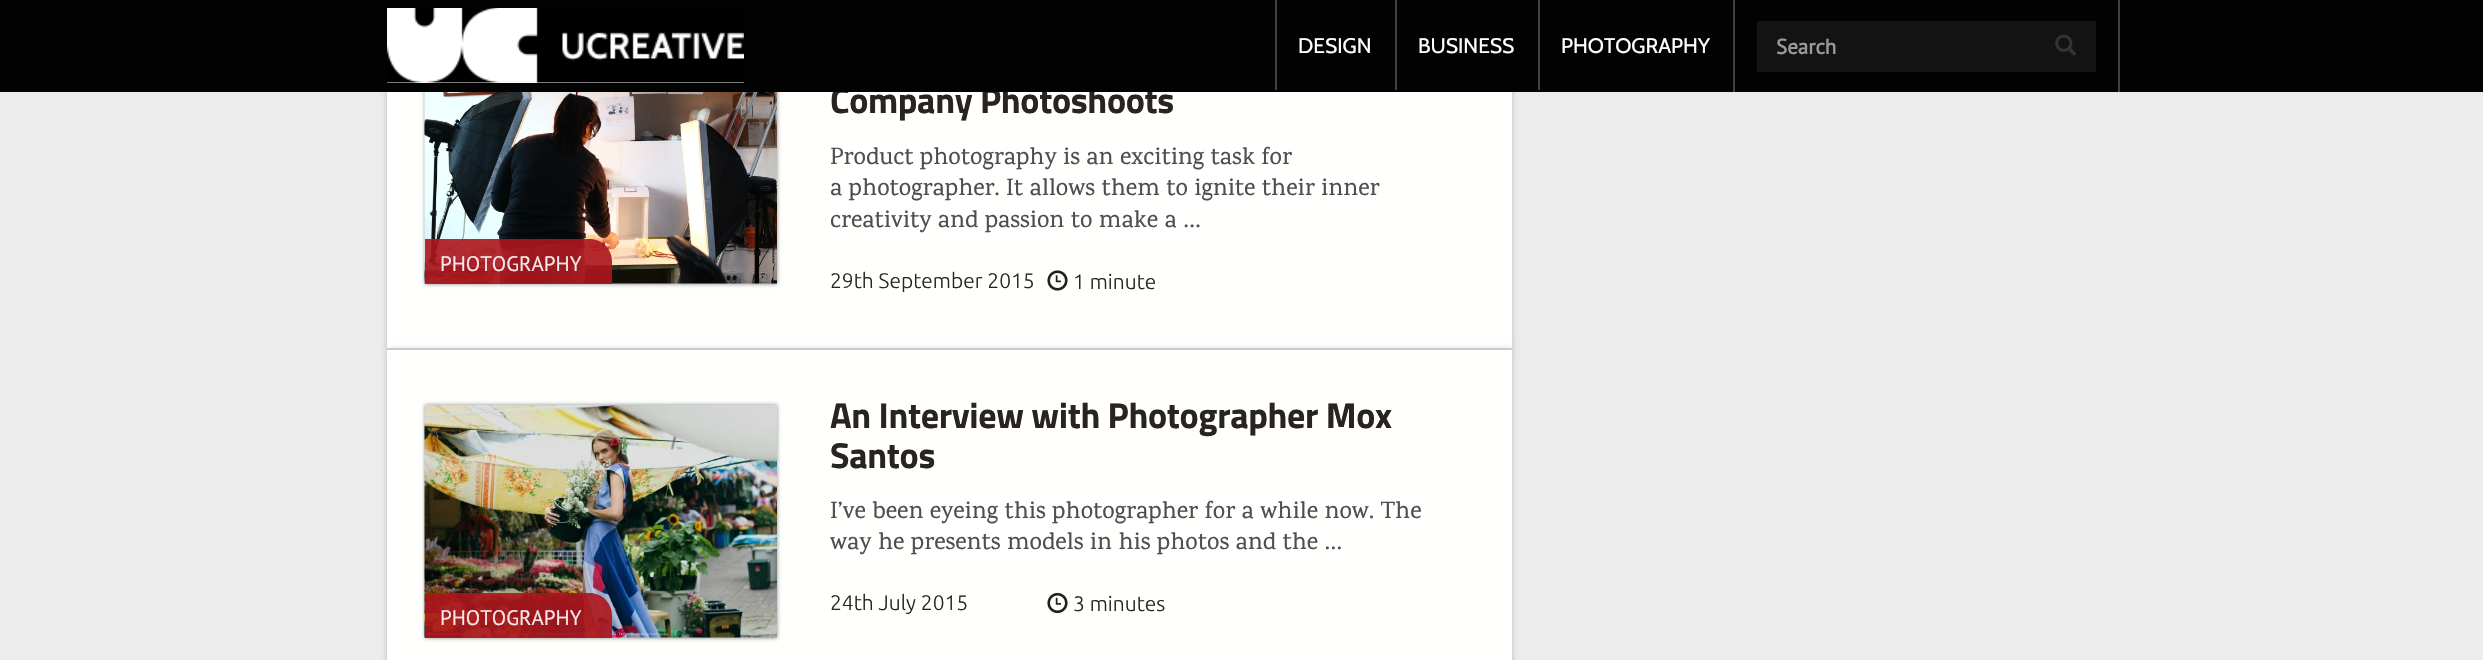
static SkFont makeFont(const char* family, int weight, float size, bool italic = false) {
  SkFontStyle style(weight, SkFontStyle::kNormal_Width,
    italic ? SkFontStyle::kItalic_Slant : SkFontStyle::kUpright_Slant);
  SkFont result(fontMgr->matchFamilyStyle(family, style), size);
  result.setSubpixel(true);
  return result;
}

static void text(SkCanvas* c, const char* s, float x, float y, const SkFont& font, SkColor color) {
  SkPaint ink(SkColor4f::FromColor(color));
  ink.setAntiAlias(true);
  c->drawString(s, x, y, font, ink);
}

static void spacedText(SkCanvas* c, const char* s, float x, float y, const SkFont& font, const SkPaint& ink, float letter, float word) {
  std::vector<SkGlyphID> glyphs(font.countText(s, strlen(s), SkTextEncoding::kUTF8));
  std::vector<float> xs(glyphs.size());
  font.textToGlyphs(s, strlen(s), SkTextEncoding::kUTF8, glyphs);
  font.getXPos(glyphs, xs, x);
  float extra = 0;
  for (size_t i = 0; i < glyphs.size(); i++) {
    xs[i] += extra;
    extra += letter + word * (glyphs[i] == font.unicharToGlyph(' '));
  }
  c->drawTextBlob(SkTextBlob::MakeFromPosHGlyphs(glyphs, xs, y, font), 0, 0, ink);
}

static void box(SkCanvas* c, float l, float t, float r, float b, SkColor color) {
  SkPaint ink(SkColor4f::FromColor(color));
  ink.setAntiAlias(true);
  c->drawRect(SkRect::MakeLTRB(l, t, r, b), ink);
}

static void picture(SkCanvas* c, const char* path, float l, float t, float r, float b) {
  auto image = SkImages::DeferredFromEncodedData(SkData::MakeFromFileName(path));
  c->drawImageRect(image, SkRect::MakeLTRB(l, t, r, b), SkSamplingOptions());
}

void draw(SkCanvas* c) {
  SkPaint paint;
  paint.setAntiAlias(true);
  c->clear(0xffececec);
  paint.setColor(0xffbabebe);
  paint.setMaskFilter(SkMaskFilter::MakeBlur(kNormal_SkBlurStyle, 3));
  c->drawRect(SkRect::MakeLTRB(387, -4, 1512, 350), paint);
  paint.setMaskFilter(nullptr);
  box(c, 387, 92, 1512, 348, 0xfffffffe);
  paint.setColor(0xff888888);
  paint.setMaskFilter(SkMaskFilter::MakeBlur(kNormal_SkBlurStyle, 2));
  c->drawRect(SkRect::MakeLTRB(425, 51, 777, 284), paint);
  paint.setMaskFilter(nullptr);
  SkFont face1 = makeFont("Titillium Web", 700, 36);
  paint.setColor(0xff292421);
  spacedText(c, "Company Photoshoots", 830, 113, face1, paint, -0.35f, 0);
  box(c, 0, 0, 2483, 92, 0xff020202);
  box(c, 387, 8, 744, 83, 0xffffffff);
  picture(c, "img_01.png", 387, 8, 744, 83);
  box(c, 2118, 0, 2120, 92, 0xff404040);
  box(c, 1275, 0, 1277, 90, 0xff404040);
  SkFont face2 = makeFont("Cabin", 400, 21);
  text(c, "DESIGN", 1298, 53, face2, 0xffffffff);
  box(c, 1395, 0, 1397, 90, 0xff404040);
  text(c, "BUSINESS", 1418, 53, face2, 0xffffffff);
  box(c, 1538, 0, 1540, 90, 0xff404040);
  text(c, "PHOTOGRAPHY", 1561, 53, face2, 0xffffffff);
  box(c, 1733, 0, 1735, 92, 0xff404040);
  box(c, 1757, 21, 2096, 72, 0xff131313);
  picture(c, "img_02.png", 2055, 34, 2076, 56);
  SkFont face3 = makeFont("PT Sans", 700, 21);
  text(c, "Search", 1776, 54, face3, 0xff999999);
  box(c, 387, 348, 1512, 350, 0xffd3d3d3);
  picture(c, "img_03.png", 424, 92, 777, 284);
  paint.setColor(0xe6ac151c);
  c->drawPath(SkPathBuilder().moveTo(425, 239).lineTo(589.5f, 239).cubicTo(602, 239, 612, 249, 612, 261.5f).lineTo(612, 284).lineTo(425, 284).close().detach(), paint);
  SkFont face4 = makeFont("PT Sans", 400, 21);
  text(c, "PHOTOGRAPHY", 440, 271, face4, 0xfff6e8e9);
  SkFont face5 = makeFont("Karma", 500, 24);
  text(c, "Product photography is an exciting task for", 830, 164, face5, 0xff4f4f4f);
  text(c, "a photographer. It allows them to ignite their inner", 830, 195, face5, 0xff4f4f4f);
  text(c, "creativity and passion to make a …", 830, 227, face5, 0xff4f4f4f);
  SkFont face6 = makeFont("Ubuntu", 300, 21);
  text(c, "29th September 2015", 830, 288, face6, 0xff292421);
  picture(c, "img_04.png", 1047, 270, 1068, 291);
  text(c, "1 minute", 1073, 289, face6, 0xff292421);
  box(c, 387, 350, 1512, 660, 0xfffffffe);
  c->save();
  c->clipPath(SkPathBuilder(SkPathFillType::kEvenOdd).moveTo(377, 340).lineTo(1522, 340).lineTo(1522, 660).lineTo(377, 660).close().moveTo(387, 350).lineTo(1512, 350).lineTo(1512, 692).lineTo(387, 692).close().detach(), true);
  paint.setColor(0xffbabebe);
  paint.setMaskFilter(SkMaskFilter::MakeBlur(kNormal_SkBlurStyle, 3));
  c->drawRect(SkRect::MakeLTRB(387, 350, 1512, 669), paint);
  paint.setMaskFilter(nullptr);
  c->restore();
  paint.setColor(0xff292421);
  spacedText(c, "An Interview with Photographer Mox", 830, 428, face1, paint, -0.35f, 0);
  spacedText(c, "Santos", 830, 468, face1, paint, -0.35f, 0);
  text(c, "I’ve been eyeing this photographer for a while now. The", 830, 518, face5, 0xff4f4f4f);
  text(c, "way he presents models in his photos and the …", 830, 549, face5, 0xff4f4f4f);
  text(c, "24th July 2015", 830, 610, face6, 0xff292421);
  picture(c, "img_05.png", 1047, 592, 1068, 614);
  text(c, "3 minutes", 1073, 611, face6, 0xff292421);
  paint.setColor(0xff888888);
  paint.setMaskFilter(SkMaskFilter::MakeBlur(kNormal_SkBlurStyle, 2));
  c->drawRect(SkRect::MakeLTRB(425, 405, 777, 638), paint);
  paint.setMaskFilter(nullptr);
  picture(c, "img_06.png", 424, 405, 777, 638);
  paint.setColor(0xe6ac151c);
  c->drawPath(SkPathBuilder().moveTo(425, 593).lineTo(589.5f, 593).cubicTo(602, 593, 612, 603, 612, 615.5f).lineTo(612, 638).lineTo(425, 638).close().detach(), paint);
  text(c, "PHOTOGRAPHY", 440, 625, face4, 0xfff6e8e9);
}
